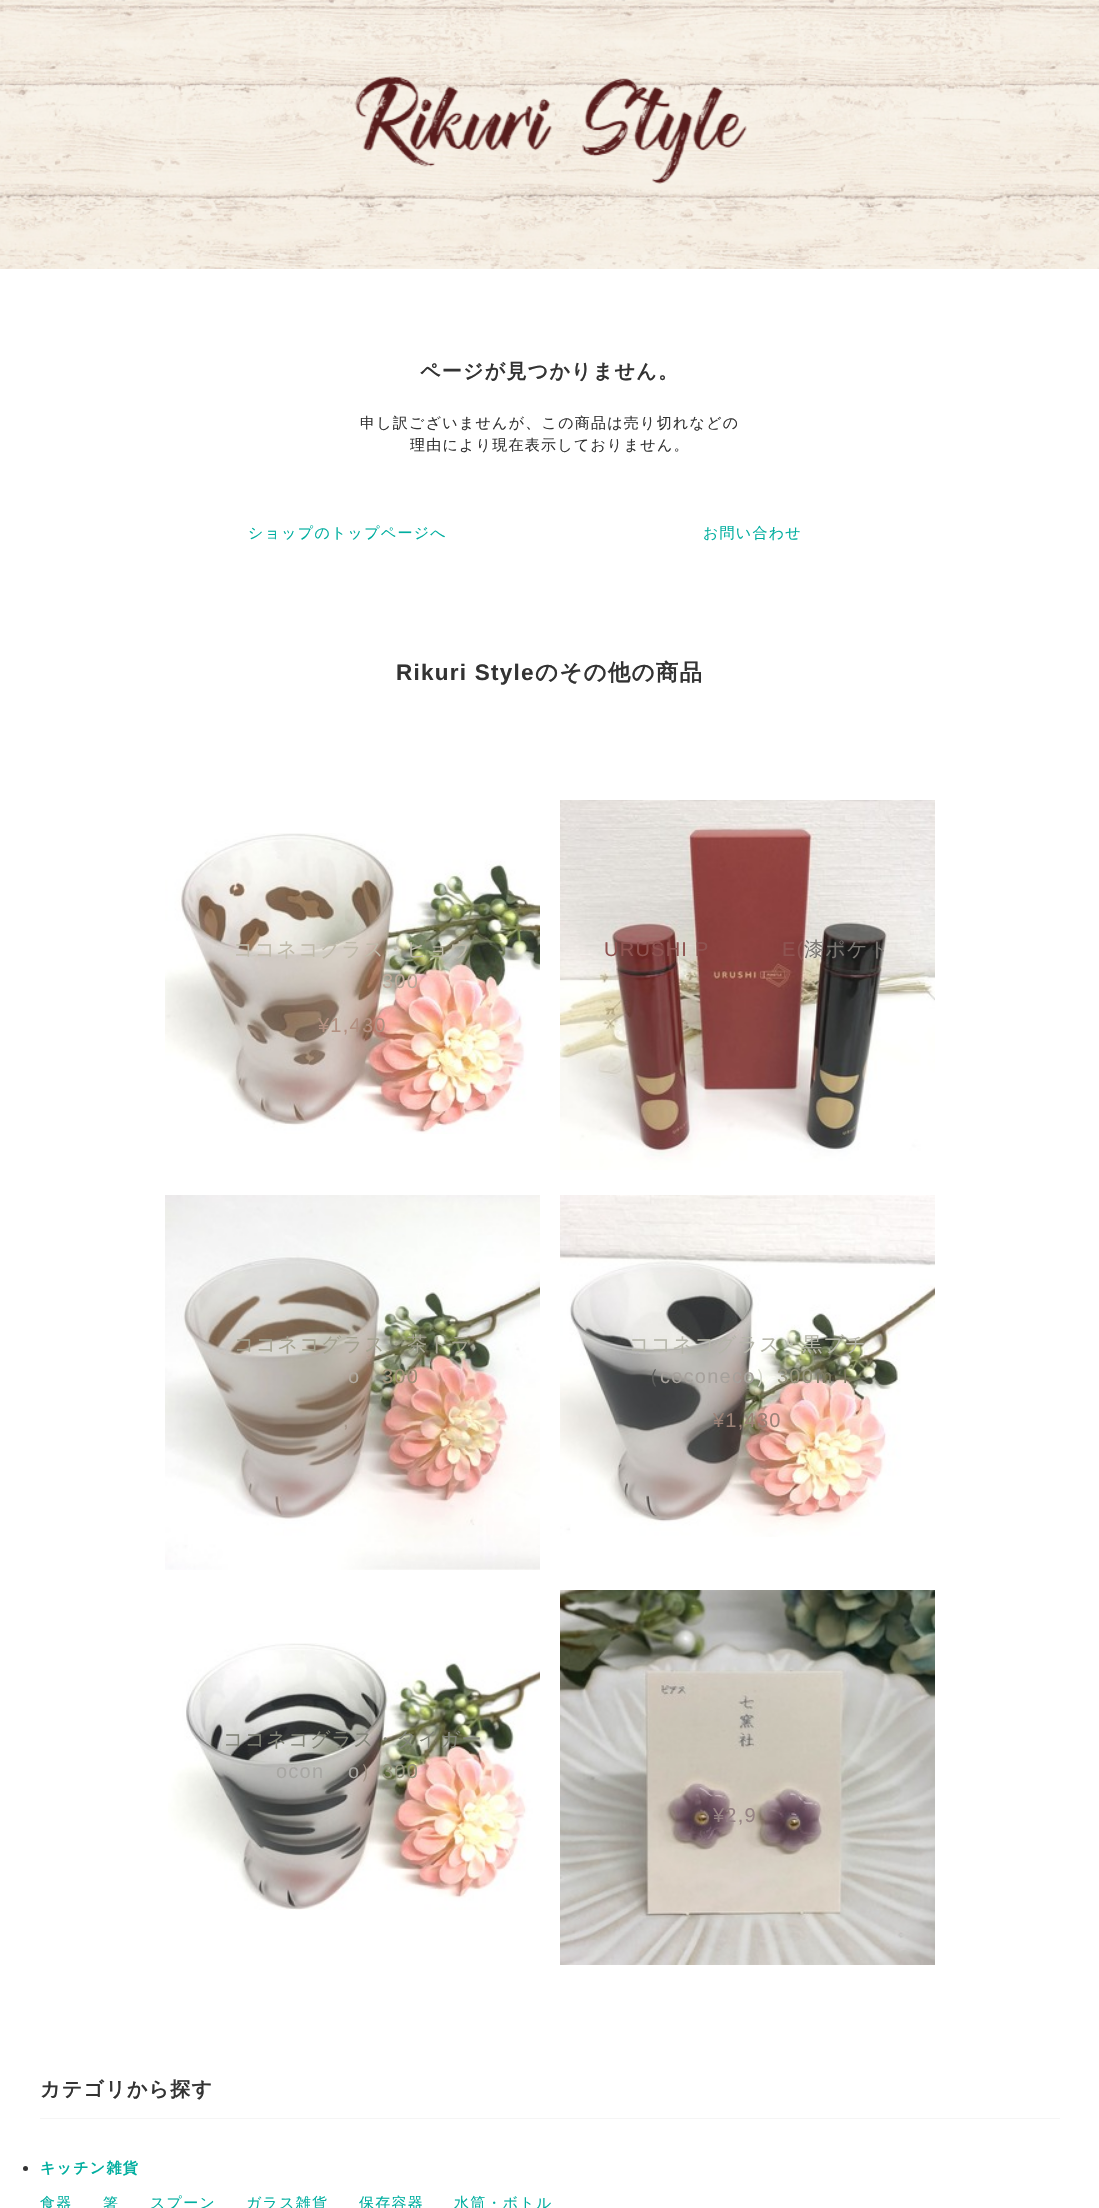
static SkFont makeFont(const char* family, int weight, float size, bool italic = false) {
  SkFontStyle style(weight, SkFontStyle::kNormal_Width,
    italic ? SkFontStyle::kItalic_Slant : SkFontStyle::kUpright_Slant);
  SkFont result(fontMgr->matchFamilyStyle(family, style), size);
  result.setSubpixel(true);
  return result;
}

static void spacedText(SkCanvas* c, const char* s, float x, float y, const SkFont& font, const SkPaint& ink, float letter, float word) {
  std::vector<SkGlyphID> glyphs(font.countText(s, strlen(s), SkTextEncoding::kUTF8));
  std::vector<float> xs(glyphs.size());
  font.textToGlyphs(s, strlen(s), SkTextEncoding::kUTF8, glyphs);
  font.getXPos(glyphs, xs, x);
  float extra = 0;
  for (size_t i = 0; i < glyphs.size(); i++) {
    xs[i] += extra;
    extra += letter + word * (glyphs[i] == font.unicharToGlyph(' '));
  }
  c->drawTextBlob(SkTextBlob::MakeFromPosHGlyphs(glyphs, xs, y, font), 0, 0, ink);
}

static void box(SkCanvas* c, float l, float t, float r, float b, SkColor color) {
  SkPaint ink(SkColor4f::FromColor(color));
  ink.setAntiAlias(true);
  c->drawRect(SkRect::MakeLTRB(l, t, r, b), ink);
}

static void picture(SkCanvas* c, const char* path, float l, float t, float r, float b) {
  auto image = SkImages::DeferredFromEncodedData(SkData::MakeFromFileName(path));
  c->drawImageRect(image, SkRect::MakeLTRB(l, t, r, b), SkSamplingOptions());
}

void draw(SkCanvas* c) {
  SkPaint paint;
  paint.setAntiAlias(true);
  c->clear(0xffffffff);
  picture(c, "img_01.png", 0, 0, 1099, 269);
  picture(c, "img_02.png", 355, 76, 747, 184);
  SkFont face1 = makeFont("WenQuanYi Zen Hei", 700, 20);
  paint.setColor(0xff333333);
  spacedText(c, "ページが見つかりません。", 420, 378, face1, paint, 1.25f, 0);
  SkFont face2 = makeFont("WenQuanYi Zen Hei", 500, 15);
  spacedText(c, "申し訳ございませんが、この商品は売り切れなどの", 360, 428, face2, paint, 1.25f, 0);
  spacedText(c, "理由により現在表示しておりません。", 410, 450, face2, paint, 1.25f, 0);
  paint.setColor(0xff00ae9f);
  spacedText(c, "ショップのトップページへ", 248, 538, face2, paint, 1.25f, 0);
  spacedText(c, "お問い合わせ", 703, 538, face2, paint, 1.25f, 0);
  SkFont face3 = makeFont("Liberation Sans", 700, 22.5f);
  paint.setColor(0xff333333);
  spacedText(c, "Rikuri Style", 396, 680, face3, paint, 1.25f, 0);
  SkFont face4 = makeFont("WenQuanYi Zen Hei", 700, 22.5f);
  spacedText(c, "のその他の商品", 535, 680, face4, paint, 1.25f, 0);
  picture(c, "img_03.png", 165, 833, 540, 1134);
  SkFont face5 = makeFont("WenQuanYi Zen Hei", 500, 20);
  paint.setColor(0xffbfbaaa);
  spacedText(c, "ココネコグラス・ヒョウ", 233, 956, face5, paint, 1.25f, 0);
  SkFont face6 = makeFont("Liberation Sans", 400, 20);
  paint.setColor(0xffbea99a);
  spacedText(c, "300", 382, 988, face6, paint, 1.25f, 0);
  paint.setColor(0xffb29081);
  spacedText(c, "¥1,430", 318, 1032, face6, paint, 1.25f, 0);
  picture(c, "img_04.png", 560, 800, 935, 1170);
  paint.setColor(0xff8f5451);
  spacedText(c, "URUSHI P", 604, 956, face6, paint, 1.25f, 0);
  spacedText(c, "E(", 782, 956, face6, paint, 1.25f, 0);
  paint.setColor(0xff7a7773);
  spacedText(c, "漆ポケト", 804, 956, face5, paint, 1.25f, 0);
  picture(c, "img_05.png", 165, 1195, 540, 1570);
  paint.setColor(0xffa5a391);
  spacedText(c, "ココネコグラス・茶トラ", 234, 1351, face5, paint, 1.25f, 0);
  paint.setColor(0xffb3aba1);
  spacedText(c, "o", 348, 1383, face6, paint, 1.25f, 0);
  paint.setColor(0xffa19078);
  spacedText(c, "300", 382, 1383, face6, paint, 1.25f, 0);
  paint.setColor(0xffa39486);
  spacedText(c, ",", 343, 1427, face6, paint, 1.25f, 0);
  picture(c, "img_06.png", 560, 1195, 935, 1537);
  paint.setColor(0xffb5b5a9);
  spacedText(c, "ココネコグラス・黒ブチ", 629, 1351, face5, paint, 1.25f, 0);
  paint.setColor(0xff5c5d5c);
  spacedText(c, "（", 639, 1383, face5, paint, 1.25f, 0);
  paint.setColor(0xffa6a19c);
  spacedText(c, "coconeco", 660, 1383, face6, paint, 1.25f, 0);
  paint.setColor(0xffd4d7ca);
  spacedText(c, "）", 755, 1383, face5, paint, 1.25f, 0);
  paint.setColor(0xff95937d);
  spacedText(c, "300", 777, 1383, face6, paint, 1.25f, 0);
  paint.setColor(0xff7d7a63);
  spacedText(c, "ｍｌ", 814, 1383, face5, paint, 1.25f, 0);
  paint.setColor(0xff9c8277);
  spacedText(c, "¥1,430", 713, 1427, face6, paint, 1.25f, 0);
  picture(c, "img_07.png", 168, 1643, 540, 1910);
  paint.setColor(0xff828478);
  spacedText(c, "ココネコグラス・タイガー", 223, 1746, face5, paint, 1.25f, 0);
  paint.setColor(0xffa8a7a3);
  spacedText(c, "ocon", 276, 1778, face6, paint, 1.25f, 0);
  spacedText(c, "o", 348, 1778, face6, paint, 1.25f, 0);
  paint.setColor(0xffa39486);
  spacedText(c, "）", 360, 1778, face5, paint, 1.25f, 0);
  paint.setColor(0xff95937d);
  spacedText(c, "300", 382, 1778, face6, paint, 1.25f, 0);
  picture(c, "img_08.png", 560, 1590, 935, 1965);
  paint.setColor(0xff968384);
  spacedText(c, "¥2,9", 713, 1822, face6, paint, 1.25f, 0);
  box(c, 40, 2118, 1060, 2119, 0xfff5f5f5);
  paint.setColor(0xff333333);
  spacedText(c, "カテゴリから探す", 40, 2096, face1, paint, 1.25f, 0);
  c->drawCircle(25.5f, 2168.5f, 2.5f, paint);
  SkFont face7 = makeFont("WenQuanYi Zen Hei", 700, 15);
  paint.setColor(0xff00ae9f);
  spacedText(c, "キッチン雑貨", 40, 2173, face7, paint, 1.25f, 0);
  spacedText(c, "食器", 40, 2208, face2, paint, 1.25f, 0);
  spacedText(c, "箸", 103, 2208, face2, paint, 1.25f, 0);
  spacedText(c, "スプーン", 150, 2208, face2, paint, 1.25f, 0);
  spacedText(c, "ガラス雑貨", 246, 2208, face2, paint, 1.25f, 0);
  spacedText(c, "保存容器", 359, 2208, face2, paint, 1.25f, 0);
  spacedText(c, "水筒・ボトル", 454, 2208, face2, paint, 1.25f, 0);
}
